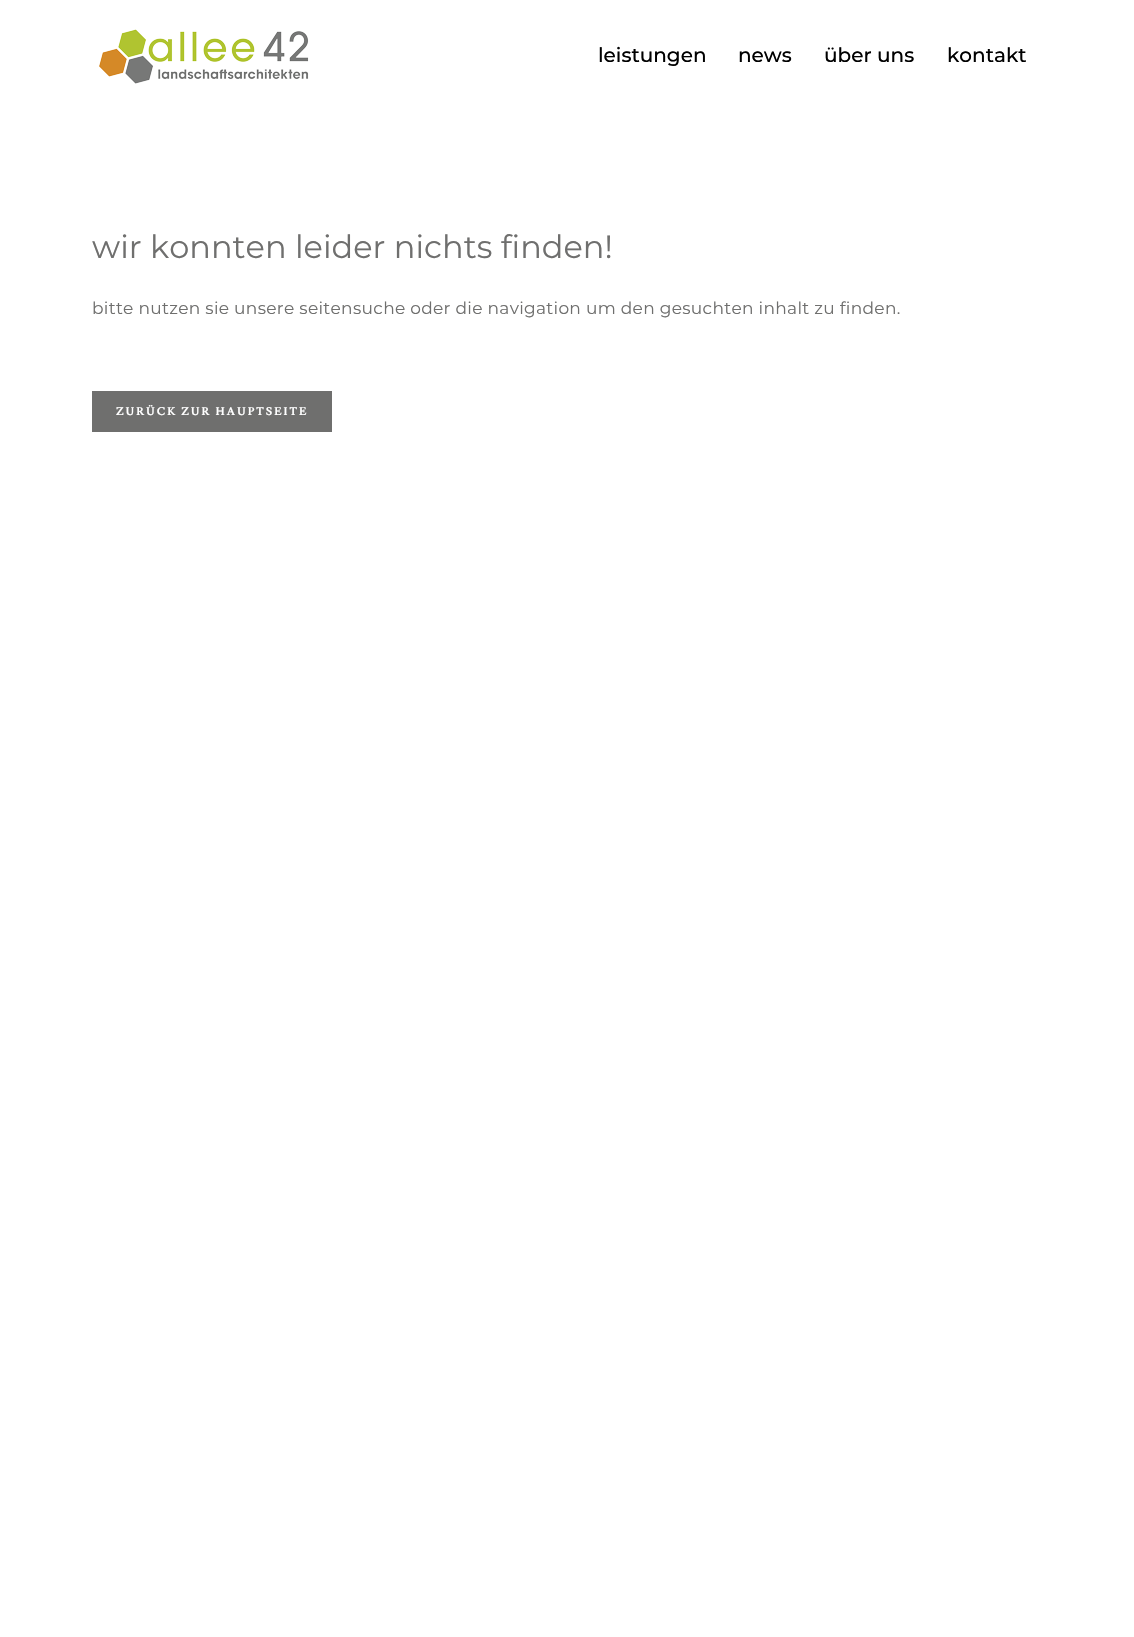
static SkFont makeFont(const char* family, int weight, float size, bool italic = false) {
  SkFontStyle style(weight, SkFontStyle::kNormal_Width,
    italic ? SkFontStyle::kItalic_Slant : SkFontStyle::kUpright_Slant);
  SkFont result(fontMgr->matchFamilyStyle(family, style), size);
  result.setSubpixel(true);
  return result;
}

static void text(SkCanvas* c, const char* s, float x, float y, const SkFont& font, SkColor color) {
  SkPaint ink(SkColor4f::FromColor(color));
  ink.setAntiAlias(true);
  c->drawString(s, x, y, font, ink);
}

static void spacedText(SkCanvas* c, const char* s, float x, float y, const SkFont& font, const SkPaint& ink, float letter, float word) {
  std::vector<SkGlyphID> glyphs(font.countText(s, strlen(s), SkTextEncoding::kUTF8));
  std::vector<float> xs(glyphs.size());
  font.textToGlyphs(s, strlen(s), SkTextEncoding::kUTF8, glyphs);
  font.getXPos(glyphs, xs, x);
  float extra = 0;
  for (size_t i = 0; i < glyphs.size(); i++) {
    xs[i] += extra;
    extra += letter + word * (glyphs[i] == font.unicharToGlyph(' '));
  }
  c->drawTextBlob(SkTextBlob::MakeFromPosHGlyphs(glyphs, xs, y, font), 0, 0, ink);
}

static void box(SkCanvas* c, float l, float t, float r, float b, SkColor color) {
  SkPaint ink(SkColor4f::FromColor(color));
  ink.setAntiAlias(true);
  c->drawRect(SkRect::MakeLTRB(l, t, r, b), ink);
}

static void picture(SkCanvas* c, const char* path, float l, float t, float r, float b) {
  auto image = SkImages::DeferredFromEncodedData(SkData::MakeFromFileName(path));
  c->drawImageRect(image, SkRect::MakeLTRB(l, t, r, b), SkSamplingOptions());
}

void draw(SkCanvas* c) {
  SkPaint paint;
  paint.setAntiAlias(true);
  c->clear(0xffffffff);
  picture(c, "img_01.png", 99, 29, 309, 84);
  SkFont face1 = makeFont("Montserrat", 500, 20);
  text(c, "leistungen", 598, 62, face1, 0xff000000);
  text(c, "news", 738, 62, face1, 0xff000000);
  text(c, "über uns", 824, 62, face1, 0xff000000);
  text(c, "kontakt", 947, 62, face1, 0xff000000);
  SkFont face2 = makeFont("Montserrat", 400, 32);
  text(c, "wir konnten leider nichts finden!", 92, 258, face2, 0xff6f6f6e);
  SkFont face3 = makeFont("Montserrat", 400, 17);
  paint.setColor(0xff6f6f6e);
  spacedText(c, "bitte nutzen sie unsere seitensuche oder die navigation um den gesuchten inhalt zu finden.", 92, 314, face3, paint, 0.3f, 0);
  box(c, 92, 391, 332, 432, 0xff6f6f6e);
  SkFont face4 = makeFont("Lusitana", 700, 11);
  paint.setColor(0xffffffff);
  spacedText(c, "ZURÜCK ZUR HAUPTSEITE", 116, 415, face4, paint, 2, 0);
}
